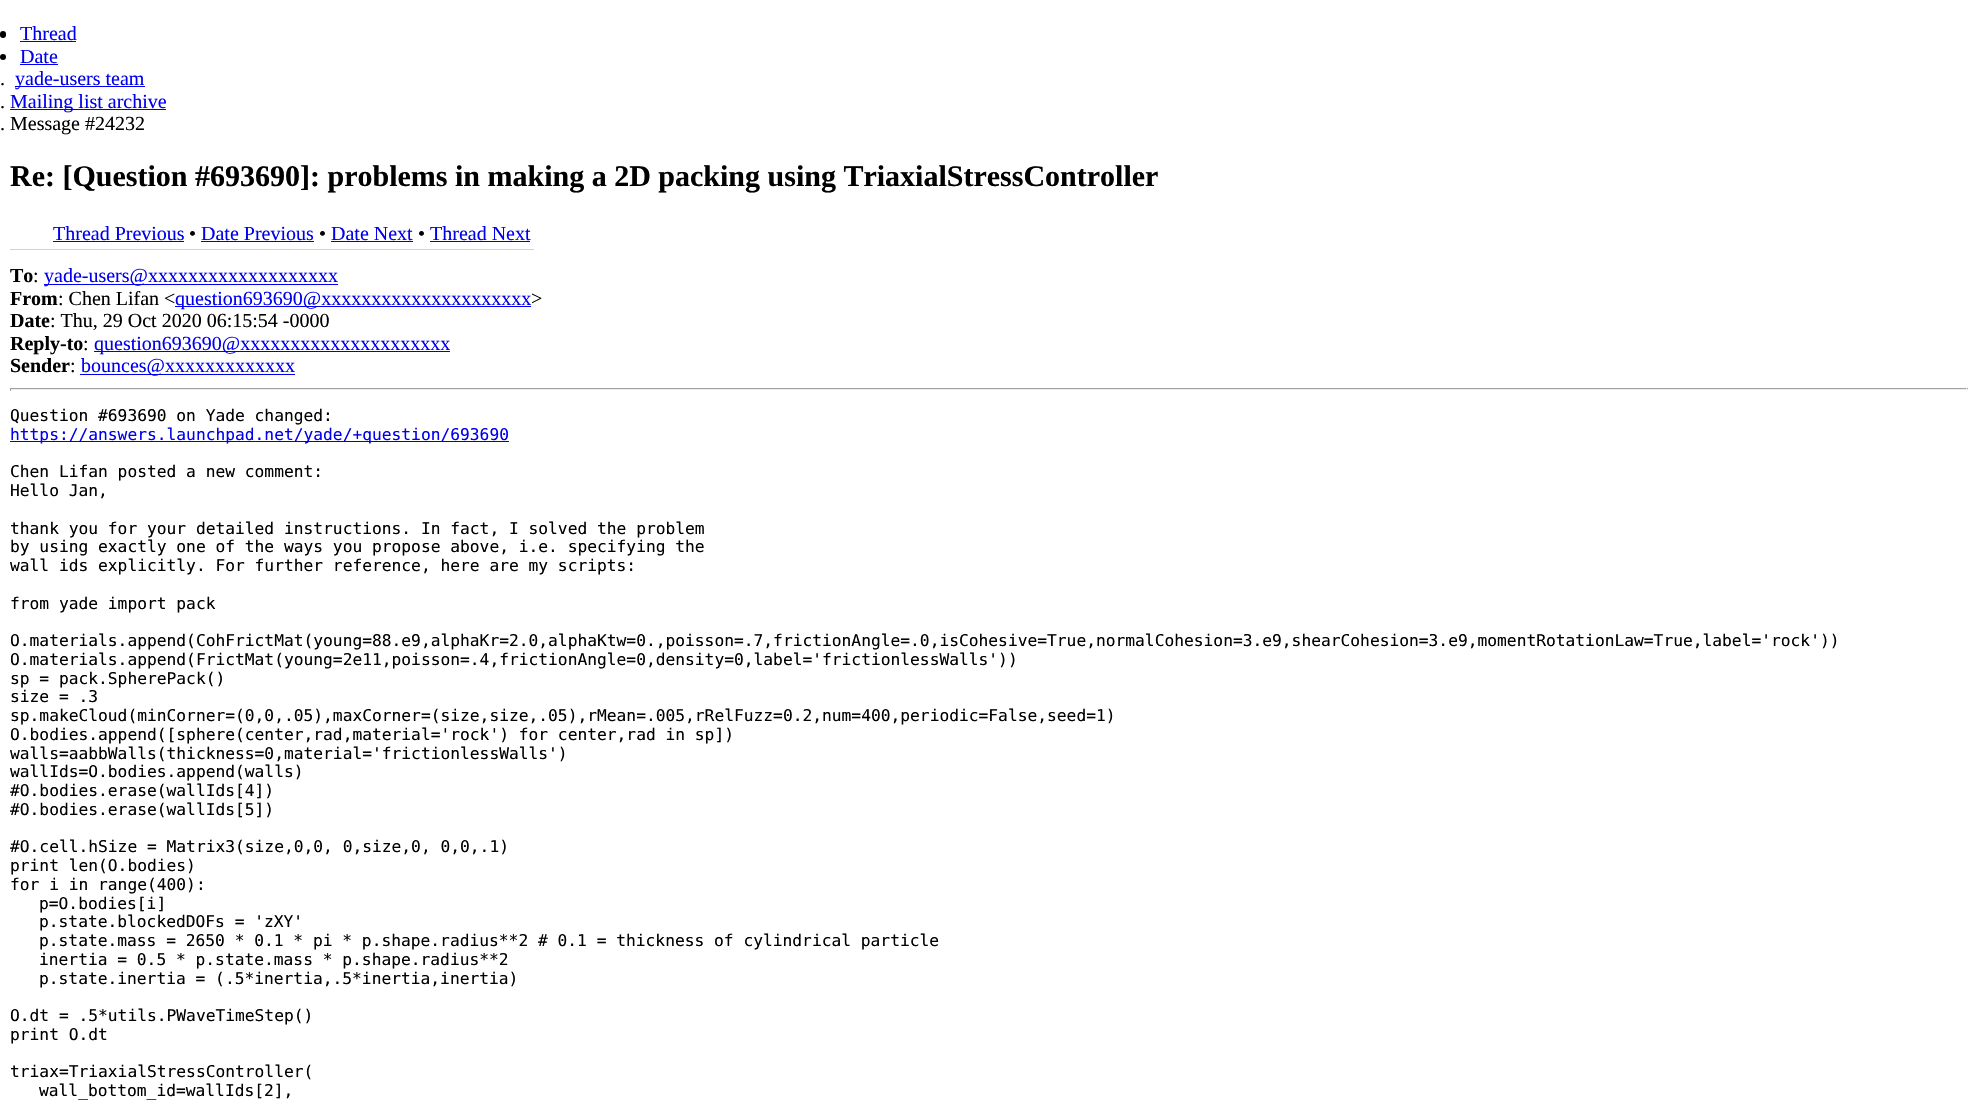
static SkFont makeFont(const char* family, int weight, float size, bool italic = false) {
  SkFontStyle style(weight, SkFontStyle::kNormal_Width,
    italic ? SkFontStyle::kItalic_Slant : SkFontStyle::kUpright_Slant);
  SkFont result(fontMgr->matchFamilyStyle(family, style), size);
  result.setSubpixel(true);
  return result;
}

static void text(SkCanvas* c, const char* s, float x, float y, const SkFont& font, SkColor color) {
  SkPaint ink(SkColor4f::FromColor(color));
  ink.setAntiAlias(true);
  c->drawString(s, x, y, font, ink);
}

static void box(SkCanvas* c, float l, float t, float r, float b, SkColor color) {
  SkPaint ink(SkColor4f::FromColor(color));
  ink.setAntiAlias(true);
  c->drawRect(SkRect::MakeLTRB(l, t, r, b), ink);
}

static void roundBox(SkCanvas* c, float l, float t, float r, float b, float radius, SkColor color) {
  SkPaint ink(SkColor4f::FromColor(color));
  ink.setAntiAlias(true);
  c->drawRoundRect(SkRect::MakeLTRB(l, t, r, b), radius, radius, ink);
}

void draw(SkCanvas* c) {
  SkPaint paint;
  paint.setAntiAlias(true);
  c->clear(0xffffffff);
  roundBox(c, 0, 31, 6, 38, 3, 0xff000000);
  SkFont face1 = makeFont("Liberation Serif", 400, 20);
  text(c, "Thread", 20, 40, face1, 0xff0000ee);
  box(c, 20, 41, 76, 42, 0xff0000ee);
  paint.setColor(0xff000000);
  c->drawCircle(3, 57, 3, paint);
  text(c, "Date", 20, 63, face1, 0xff0000ee);
  box(c, 20, 64, 58, 65, 0xff0000ee);
  text(c, ".", 0, 85, face1, 0xff000000);
  box(c, 15, 86, 145, 87, 0xff0000ee);
  text(c, "yade-users team", 15, 85, face1, 0xff0000ee);
  text(c, ".", 0, 108, face1, 0xff000000);
  box(c, 10, 109, 166, 110, 0xff0000ee);
  text(c, "Mailing list archive", 10, 108, face1, 0xff0000ee);
  text(c, ". Message #24232", 0, 130, face1, 0xff000000);
  SkFont face2 = makeFont("Liberation Serif", 700, 30);
  text(c, "Re: [Question #693690]: problems in making a 2D packing using TriaxialStressController", 10, 186, face2, 0xff000000);
  box(c, 10, 249, 534, 250, 0xffd2d2d2);
  text(c, "Thread Previous", 53, 240, face1, 0xff0000ee);
  box(c, 53, 241, 184, 242, 0xff0000ee);
  text(c, "•", 189, 240, face1, 0xff000000);
  text(c, "Date Previous", 201, 240, face1, 0xff0000ee);
  box(c, 201, 241, 314, 242, 0xff0000ee);
  text(c, "•", 319, 240, face1, 0xff000000);
  text(c, "Date Next", 331, 240, face1, 0xff0000ee);
  box(c, 331, 241, 413, 242, 0xff0000ee);
  text(c, "•", 418, 240, face1, 0xff000000);
  text(c, "Thread Next", 430, 240, face1, 0xff0000ee);
  box(c, 430, 241, 530, 242, 0xff0000ee);
  SkFont face3 = makeFont("Liberation Serif", 700, 20);
  text(c, "To", 10, 282, face3, 0xff000000);
  text(c, ":", 33, 282, face1, 0xff000000);
  box(c, 44, 284, 338, 285, 0xff0000ee);
  text(c, "yade-users@xxxxxxxxxxxxxxxxxxx", 44, 282, face1, 0xff0000ee);
  text(c, "From", 10, 305, face3, 0xff000000);
  text(c, ": Chen Lifan <", 58, 305, face1, 0xff000000);
  box(c, 175, 306, 531, 307, 0xff0000ee);
  text(c, "question693690@xxxxxxxxxxxxxxxxxxxxx", 175, 305, face1, 0xff0000ee);
  text(c, ">", 531, 305, face1, 0xff000000);
  text(c, "Date", 10, 327, face3, 0xff000000);
  text(c, ": Thu, 29 Oct 2020 06:15:54 -0000", 50, 327, face1, 0xff000000);
  text(c, "Reply-to", 10, 350, face3, 0xff000000);
  text(c, ":", 83, 350, face1, 0xff000000);
  box(c, 94, 351, 450, 352, 0xff0000ee);
  text(c, "question693690@xxxxxxxxxxxxxxxxxxxxx", 94, 350, face1, 0xff0000ee);
  text(c, "Sender", 10, 372, face3, 0xff000000);
  text(c, ":", 70, 372, face1, 0xff000000);
  box(c, 80, 374, 295, 375, 0xff0000ee);
  text(c, "bounces@xxxxxxxxxxxxx", 81, 372, face1, 0xff0000ee);
  box(c, 10, 388, 1968, 389, 0xff9f9f9f);
  box(c, 1966, 388, 1967, 391, 0xffeeeeee);
  box(c, 10, 389, 1968, 390, 0xffeeeeee);
  box(c, 10, 388, 11, 391, 0xff9f9f9f);
  SkFont face4 = makeFont("DejaVu Sans Mono", 400, 16.25f);
  text(c, "Question #693690 on Yade changed:", 10, 421, face4, 0xff000000);
  box(c, 10, 441, 509, 442, 0xff0000ee);
  text(c, "https://answers.launchpad.net/yade/+question/693690", 10, 440, face4, 0xff0000ee);
  text(c, "Chen Lifan posted a new comment:", 10, 477, face4, 0xff000000);
  text(c, "Hello Jan,", 10, 496, face4, 0xff000000);
  text(c, "thank you for your detailed instructions. In fact, I solved the problem", 10, 534, face4, 0xff000000);
  text(c, "by using exactly one of the ways you propose above, i.e. specifying the", 10, 552, face4, 0xff000000);
  text(c, "wall ids explicitly. For further reference, here are my scripts:", 10, 571, face4, 0xff000000);
  text(c, "from yade import pack", 10, 609, face4, 0xff000000);
  text(c, "O.materials.append(CohFrictMat(young=88.e9,alphaKr=2.0,alphaKtw=0.,poisson=.7,frictionAngle=.0,isCohesive=True,normalCohesion=3.e9,shearCohesion=3.e9,momentRotationLaw=True,label='rock'))", 10, 646, face4, 0xff000000);
  text(c, "O.materials.append(FrictMat(young=2e11,poisson=.4,frictionAngle=0,density=0,label='frictionlessWalls'))", 10, 665, face4, 0xff000000);
  text(c, "sp = pack.SpherePack()", 10, 684, face4, 0xff000000);
  text(c, "size = .3", 10, 702, face4, 0xff000000);
  text(c, "sp.makeCloud(minCorner=(0,0,.05),maxCorner=(size,size,.05),rMean=.005,rRelFuzz=0.2,num=400,periodic=False,seed=1)", 10, 721, face4, 0xff000000);
  text(c, "O.bodies.append([sphere(center,rad,material='rock') for center,rad in sp])", 10, 740, face4, 0xff000000);
  text(c, "walls=aabbWalls(thickness=0,material='frictionlessWalls')", 10, 759, face4, 0xff000000);
  text(c, "wallIds=O.bodies.append(walls)", 10, 777, face4, 0xff000000);
  text(c, "#O.bodies.erase(wallIds[4])", 10, 796, face4, 0xff000000);
  text(c, "#O.bodies.erase(wallIds[5])", 10, 815, face4, 0xff000000);
  text(c, "#O.cell.hSize = Matrix3(size,0,0, 0,size,0, 0,0,.1)", 10, 852, face4, 0xff000000);
  text(c, "print len(O.bodies)", 10, 871, face4, 0xff000000);
  text(c, "for i in range(400):", 10, 890, face4, 0xff000000);
  text(c, "p=O.bodies[i]", 39, 909, face4, 0xff000000);
  text(c, "p.state.blockedDOFs = 'zXY'", 39, 927, face4, 0xff000000);
  text(c, "p.state.mass = 2650 * 0.1 * pi * p.shape.radius**2 # 0.1 = thickness of cylindrical particle", 39, 946, face4, 0xff000000);
  text(c, "inertia = 0.5 * p.state.mass * p.shape.radius**2", 39, 965, face4, 0xff000000);
  text(c, "p.state.inertia = (.5*inertia,.5*inertia,inertia)", 39, 984, face4, 0xff000000);
  text(c, "O.dt = .5*utils.PWaveTimeStep()", 10, 1021, face4, 0xff000000);
  text(c, "print O.dt", 10, 1040, face4, 0xff000000);
  text(c, "triax=TriaxialStressController(", 10, 1077, face4, 0xff000000);
  text(c, "wall_bottom_id=wallIds[2],", 39, 1096, face4, 0xff000000);
}
